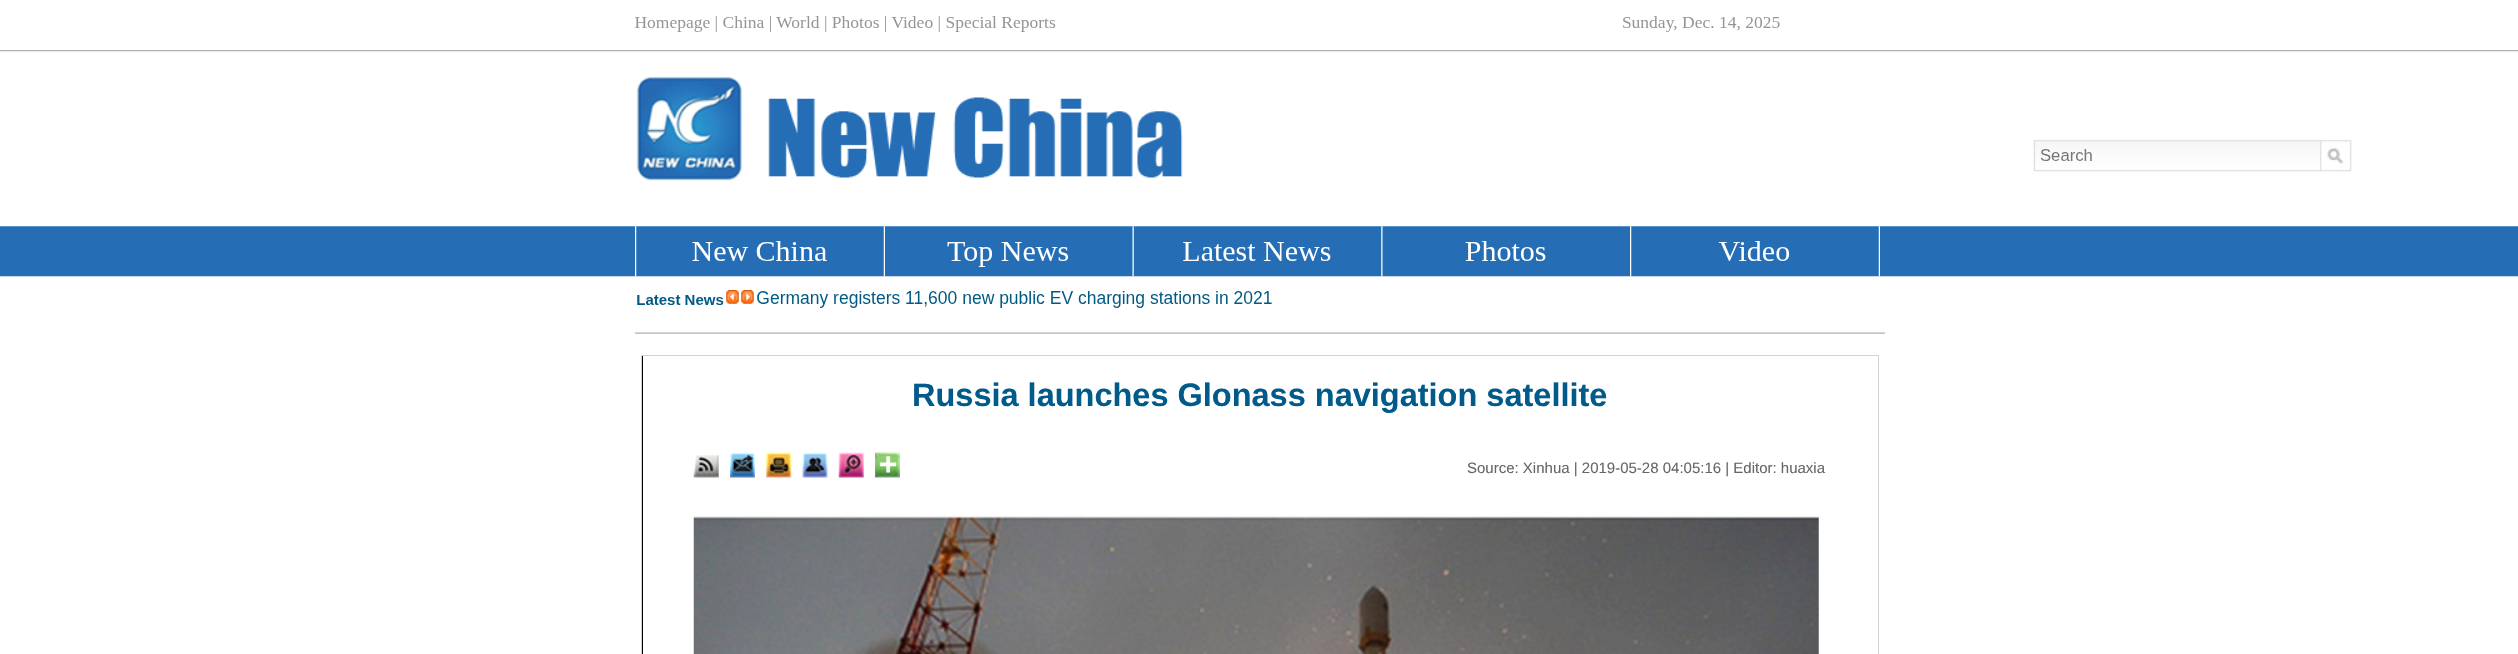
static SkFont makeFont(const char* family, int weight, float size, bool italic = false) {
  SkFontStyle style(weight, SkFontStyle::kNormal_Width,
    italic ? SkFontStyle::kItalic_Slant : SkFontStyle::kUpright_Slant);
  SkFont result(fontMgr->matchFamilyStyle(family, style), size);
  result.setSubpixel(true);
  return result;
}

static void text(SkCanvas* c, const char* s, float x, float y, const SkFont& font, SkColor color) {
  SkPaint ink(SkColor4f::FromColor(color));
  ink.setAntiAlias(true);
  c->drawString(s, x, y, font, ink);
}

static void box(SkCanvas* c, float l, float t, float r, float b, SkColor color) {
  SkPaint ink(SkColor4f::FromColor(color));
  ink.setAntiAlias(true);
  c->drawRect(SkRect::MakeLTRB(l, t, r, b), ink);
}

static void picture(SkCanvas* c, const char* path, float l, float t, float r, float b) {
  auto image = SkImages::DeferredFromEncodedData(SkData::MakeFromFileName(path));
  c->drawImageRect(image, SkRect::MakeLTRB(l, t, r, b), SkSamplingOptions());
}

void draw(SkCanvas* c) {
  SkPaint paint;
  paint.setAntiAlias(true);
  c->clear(0xffffffff);
  picture(c, "img_01.png", 0, 16, 2518, 334);
  box(c, 642, 356, 643, 654, 0xff000000);
  paint.setStyle(SkPaint::kStroke_Style);
  paint.setStrokeWidth(1);
  paint.setColor(0xffd3d4cf);
  c->drawRect(SkRect::MakeLTRB(641.5f, 355.5f, 1878.5f, 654.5f), paint);
  SkFont face1 = makeFont("Liberation Sans", 700, 32.5f);
  text(c, "Russia launches Glonass navigation satellite", 912, 406, face1, 0xff005b8a);
  picture(c, "img_02.png", 693, 455, 719, 478);
  picture(c, "img_03.png", 730, 452, 755, 478);
  picture(c, "img_04.png", 766, 452, 792, 478);
  picture(c, "img_05.png", 802, 452, 828, 478);
  picture(c, "img_06.png", 838, 452, 864, 478);
  picture(c, "img_07.png", 875, 452, 900, 478);
  SkFont face2 = makeFont("Liberation Sans", 400, 15);
  text(c, "Source: Xinhua | 2019-05-28 04:05:16 | Editor: huaxia", 1467, 473, face2, 0xff666666);
  picture(c, "img_08.png", 693, 515, 1819, 654);
}
